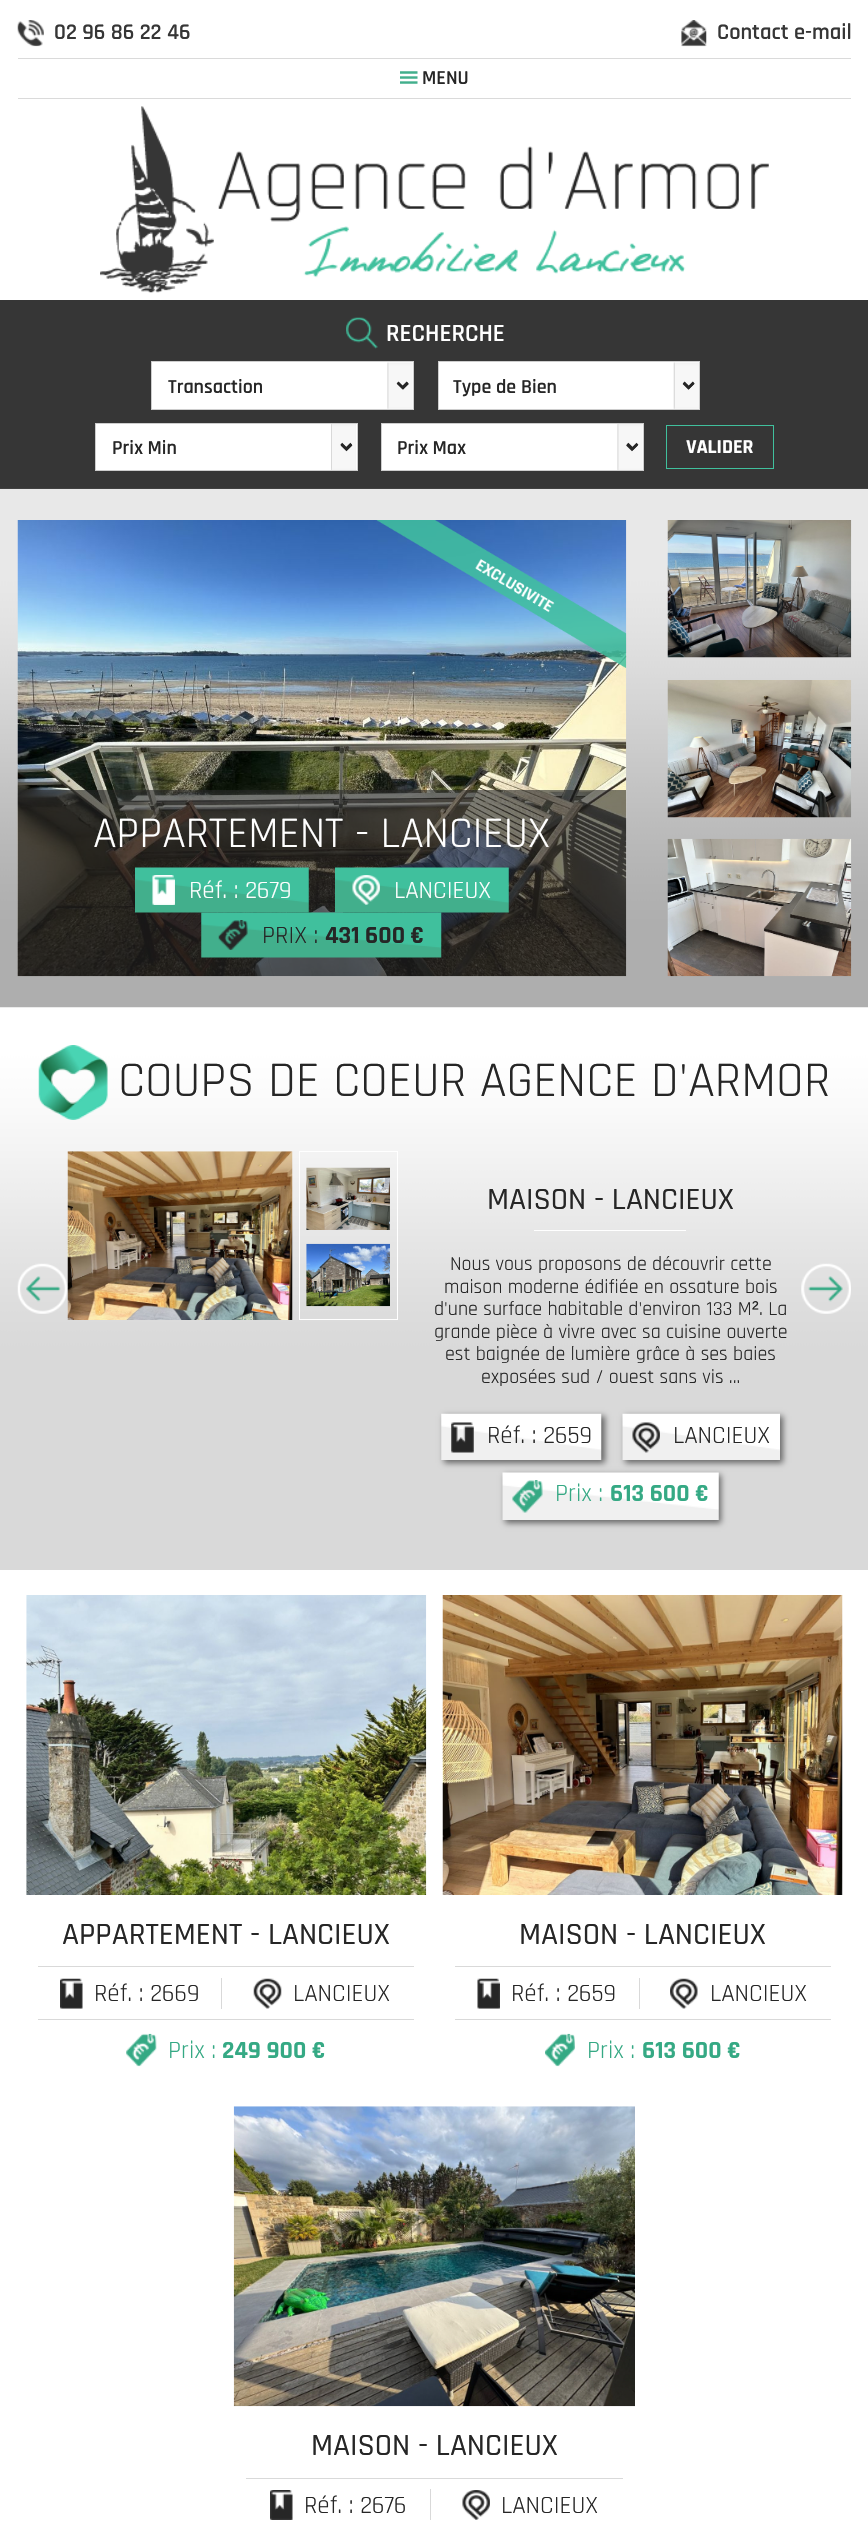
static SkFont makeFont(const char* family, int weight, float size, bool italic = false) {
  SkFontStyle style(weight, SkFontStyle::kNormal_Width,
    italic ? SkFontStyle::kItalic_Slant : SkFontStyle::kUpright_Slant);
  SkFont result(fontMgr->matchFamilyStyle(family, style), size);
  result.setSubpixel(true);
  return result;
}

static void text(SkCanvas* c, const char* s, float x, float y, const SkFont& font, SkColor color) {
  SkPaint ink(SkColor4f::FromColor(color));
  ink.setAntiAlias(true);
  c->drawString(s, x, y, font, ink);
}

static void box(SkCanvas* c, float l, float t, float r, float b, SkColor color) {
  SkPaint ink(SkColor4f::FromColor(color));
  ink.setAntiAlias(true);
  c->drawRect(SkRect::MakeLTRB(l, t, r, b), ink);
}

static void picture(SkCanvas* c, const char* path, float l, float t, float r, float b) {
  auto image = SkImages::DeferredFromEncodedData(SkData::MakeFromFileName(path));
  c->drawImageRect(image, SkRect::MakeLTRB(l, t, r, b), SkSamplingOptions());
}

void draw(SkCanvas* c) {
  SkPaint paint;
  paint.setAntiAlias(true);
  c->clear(0xffffffff);
  picture(c, "img_01.png", 17, 20, 44, 47);
  SkFont face1 = makeFont("Rajdhani", 600, 22.5f);
  text(c, "02 96 86 22 46", 54, 39, face1, 0xff363636);
  picture(c, "img_02.png", 681, 20, 707, 47);
  text(c, "Contact e-mail", 717, 39, face1, 0xff363636);
  box(c, 18, 58, 851, 59, 0xffdadada);
  box(c, 18, 98, 851, 99, 0xffdadada);
  picture(c, "img_03.png", 400, 71, 418, 84);
  SkFont face2 = makeFont("Rajdhani", 600, 20);
  text(c, "MENU", 422, 84, face2, 0xff262626);
  picture(c, "img_04.png", 100, 106, 769, 293);
  box(c, 0, 300, 868, 489, 0xff363636);
  picture(c, "img_05.png", 346, 317, 378, 349);
  SkFont face3 = makeFont("Rajdhani", 600, 25);
  text(c, "RECHERCHE", 386, 341, face3, 0xffffffff);
  box(c, 152, 362, 413, 409, 0xffffffff);
  picture(c, "img_06.png", 387, 362, 413, 409);
  paint.setStyle(SkPaint::kStroke_Style);
  paint.setStrokeWidth(1);
  paint.setColor(0xffcdcdcd);
  c->drawRect(SkRect::MakeLTRB(151.5f, 361.5f, 413.5f, 409.5f), paint);
  paint.setStrokeWidth(2.5f);
  paint.setColor(0xff262626);
  c->drawPath(SkPathBuilder().moveTo(398, 383).lineTo(403, 388).lineTo(408, 383).detach(), paint);
  text(c, "Transaction", 168, 393, face2, 0xff262626);
  box(c, 439, 362, 699, 409, 0xffffffff);
  picture(c, "img_07.png", 673, 362, 699, 409);
  paint.setStrokeWidth(1);
  paint.setColor(0xffcdcdcd);
  c->drawRect(SkRect::MakeLTRB(438.5f, 361.5f, 699.5f, 409.5f), paint);
  paint.setStrokeWidth(2.5f);
  paint.setColor(0xff262626);
  c->drawPath(SkPathBuilder().moveTo(683.5f, 383).lineTo(688.5f, 388).lineTo(693.5f, 383).detach(), paint);
  text(c, "Type de Bien", 453, 393, face2, 0xff262626);
  box(c, 96, 424, 357, 470, 0xffffffff);
  picture(c, "img_08.png", 331, 424, 356, 470);
  paint.setStrokeWidth(1);
  paint.setColor(0xffcdcdcd);
  c->drawRect(SkRect::MakeLTRB(95.5f, 423.5f, 357.5f, 470.5f), paint);
  paint.setStrokeWidth(2.5f);
  paint.setColor(0xff262626);
  c->drawPath(SkPathBuilder().moveTo(341.5f, 444.5f).lineTo(346.5f, 449.5f).lineTo(351.5f, 444.5f).detach(), paint);
  text(c, "Prix Min", 112, 454, face2, 0xff262626);
  box(c, 382, 424, 643, 470, 0xffffffff);
  picture(c, "img_09.png", 617, 424, 643, 470);
  paint.setStrokeWidth(1);
  paint.setColor(0xffcdcdcd);
  c->drawRect(SkRect::MakeLTRB(381.5f, 423.5f, 643.5f, 470.5f), paint);
  paint.setStrokeWidth(2.5f);
  paint.setColor(0xff262626);
  c->drawPath(SkPathBuilder().moveTo(627, 444.5f).lineTo(632, 449.5f).lineTo(637, 444.5f).detach(), paint);
  text(c, "Prix Max", 397, 454, face2, 0xff262626);
  paint.setStrokeWidth(1);
  paint.setColor(0xff40c09d);
  c->drawRect(SkRect::MakeLTRB(666.5f, 425.5f, 773.5f, 468.5f), paint);
  SkFont face4 = makeFont("Rajdhani", 700, 20);
  text(c, "VALIDER", 686, 453, face4, 0xffffffff);
  picture(c, "img_10.png", 0, 488, 868, 1008);
  picture(c, "img_11.png", 17, 520, 627, 977);
  picture(c, "img_12.png", 376, 520, 627, 668);
  box(c, 18, 790, 626, 976, 0x99262626);
  SkFont face5 = makeFont("Rajdhani", 400, 43.75f);
  text(c, "APPARTEMENT - LANCIEUX", 93, 847, face5, 0xffffffff);
  picture(c, "img_13.png", 135, 867, 309, 913);
  picture(c, "img_14.png", 152, 875, 175, 905);
  SkFont face6 = makeFont("Rajdhani", 400, 25);
  text(c, "Réf. : 2679", 189, 898, face6, 0xffffffff);
  picture(c, "img_15.png", 335, 867, 509, 913);
  picture(c, "img_16.png", 352, 875, 380, 905);
  text(c, "LANCIEUX", 394, 898, face6, 0xffffffff);
  picture(c, "img_17.png", 201, 912, 442, 958);
  picture(c, "img_18.png", 218, 920, 248, 950);
  text(c, "PRIX :", 262, 943, face6, 0xff262626);
  SkFont face7 = makeFont("Rajdhani", 700, 25);
  text(c, "431 600 €", 325, 943, face7, 0xff262626);
  picture(c, "img_19.png", 667, 520, 852, 658);
  picture(c, "img_20.png", 667, 680, 852, 818);
  picture(c, "img_21.png", 667, 838, 852, 977);
  picture(c, "img_22.png", 0, 1007, 868, 1570);
  picture(c, "img_23.png", 38, 1045, 108, 1120);
  SkFont face8 = makeFont("Rajdhani", 400, 50);
  text(c, "COUPS DE COEUR AGENCE D'ARMOR", 118, 1096, face8, 0xff262626);
  picture(c, "img_24.png", 17, 1263, 68, 1314);
  picture(c, "img_25.png", 67, 1151, 293, 1320);
  paint.setColor(0xffffffff);
  c->drawRect(SkRect::MakeLTRB(299.5f, 1151.5f, 397.5f, 1319.5f), paint);
  picture(c, "img_26.png", 306, 1167, 390, 1230);
  picture(c, "img_27.png", 306, 1243, 390, 1307);
  SkFont face9 = makeFont("Rajdhani", 500, 31.25f);
  text(c, "MAISON - LANCIEUX", 487, 1209, face9, 0xff262626);
  box(c, 534, 1230, 686, 1231, 0xffffffff);
  SkFont face10 = makeFont("Rajdhani", 400, 20);
  text(c, "Nous vous proposons de découvrir cette", 450, 1270, face10, 0xff262626);
  text(c, "maison moderne édifiée en ossature bois", 444, 1293, face10, 0xff262626);
  text(c, "d'une surface habitable d'environ 133 M", 434, 1315, face10, 0xff262626);
  SkFont face11 = makeFont("Liberation Sans", 400, 20);
  text(c, "²", 752, 1315, face11, 0xff262626);
  text(c, ". La", 759, 1315, face10, 0xff262626);
  text(c, "grande pièce à vivre avec sa cuisine ouverte", 434, 1338, face10, 0xff262626);
  text(c, "est baignée de lumière grâce à ses baies", 445, 1360, face10, 0xff262626);
  text(c, "exposées sud / ouest sans vis ...", 481, 1383, face10, 0xff262626);
  paint.setStyle(SkPaint::kFill_Style);
  paint.setColor(0xff666666);
  paint.setMaskFilter(SkMaskFilter::MakeBlur(kNormal_SkBlurStyle, 3));
  c->drawRect(SkRect::MakeLTRB(444, 1416, 605, 1463), paint);
  paint.setMaskFilter(nullptr);
  picture(c, "img_28.png", 441, 1413, 602, 1460);
  picture(c, "img_29.png", 451, 1422, 474, 1453);
  text(c, "Réf. : 2659", 487, 1443, face6, 0xff262626);
  paint.setMaskFilter(SkMaskFilter::MakeBlur(kNormal_SkBlurStyle, 3));
  c->drawRect(SkRect::MakeLTRB(625, 1416, 783, 1463), paint);
  paint.setMaskFilter(nullptr);
  picture(c, "img_30.png", 622, 1413, 780, 1460);
  picture(c, "img_31.png", 632, 1422, 660, 1453);
  text(c, "LANCIEUX", 673, 1443, face6, 0xff262626);
  paint.setMaskFilter(SkMaskFilter::MakeBlur(kNormal_SkBlurStyle, 3));
  c->drawRect(SkRect::MakeLTRB(505, 1475, 721, 1523), paint);
  paint.setMaskFilter(nullptr);
  picture(c, "img_32.png", 502, 1472, 719, 1520);
  picture(c, "img_33.png", 512, 1480, 543, 1513);
  text(c, "Prix :", 555, 1501, face6, 0xff35a984);
  text(c, "613 600 €", 610, 1501, face7, 0xff35a984);
  picture(c, "img_34.png", 801, 1263, 851, 1314);
  picture(c, "img_35.png", 26, 1595, 427, 1895);
  text(c, "APPARTEMENT - LANCIEUX", 62, 1944, face9, 0xff262626);
  box(c, 38, 1966, 414, 1967, 0xffd9d9d9);
  box(c, 38, 2019, 414, 2020, 0xffd9d9d9);
  box(c, 221, 1978, 222, 2009, 0xffd9d9d9);
  picture(c, "img_36.png", 60, 1978, 83, 2009);
  text(c, "Réf. : 2669", 94, 2001, face6, 0xff262626);
  picture(c, "img_37.png", 253, 1978, 282, 2009);
  text(c, "LANCIEUX", 293, 2001, face6, 0xff262626);
  picture(c, "img_38.png", 126, 2033, 157, 2067);
  text(c, "Prix :", 168, 2058, face6, 0xff35a984);
  text(c, "249 900 €", 222, 2058, face7, 0xff35a984);
  picture(c, "img_39.png", 442, 1595, 843, 1895);
  text(c, "MAISON - LANCIEUX", 519, 1944, face9, 0xff262626);
  box(c, 455, 1966, 831, 1967, 0xffd9d9d9);
  box(c, 455, 2019, 831, 2020, 0xffd9d9d9);
  box(c, 639, 1978, 640, 2009, 0xffd9d9d9);
  picture(c, "img_40.png", 477, 1978, 500, 2009);
  text(c, "Réf. : 2659", 511, 2001, face6, 0xff262626);
  picture(c, "img_41.png", 670, 1978, 698, 2009);
  text(c, "LANCIEUX", 710, 2001, face6, 0xff262626);
  picture(c, "img_42.png", 545, 2033, 575, 2067);
  text(c, "Prix :", 587, 2058, face6, 0xff35a984);
  text(c, "613 600 €", 642, 2058, face7, 0xff35a984);
  picture(c, "img_43.png", 233, 2106, 635, 2407);
  text(c, "MAISON - LANCIEUX", 311, 2455, face9, 0xff262626);
  box(c, 246, 2478, 623, 2479, 0xffd9d9d9);
  box(c, 430, 2489, 431, 2520, 0xffd9d9d9);
  picture(c, "img_44.png", 270, 2490, 293, 2520);
  text(c, "Réf. : 2676", 304, 2513, face6, 0xff262626);
  picture(c, "img_45.png", 462, 2490, 490, 2520);
  text(c, "LANCIEUX", 501, 2513, face6, 0xff262626);
}
